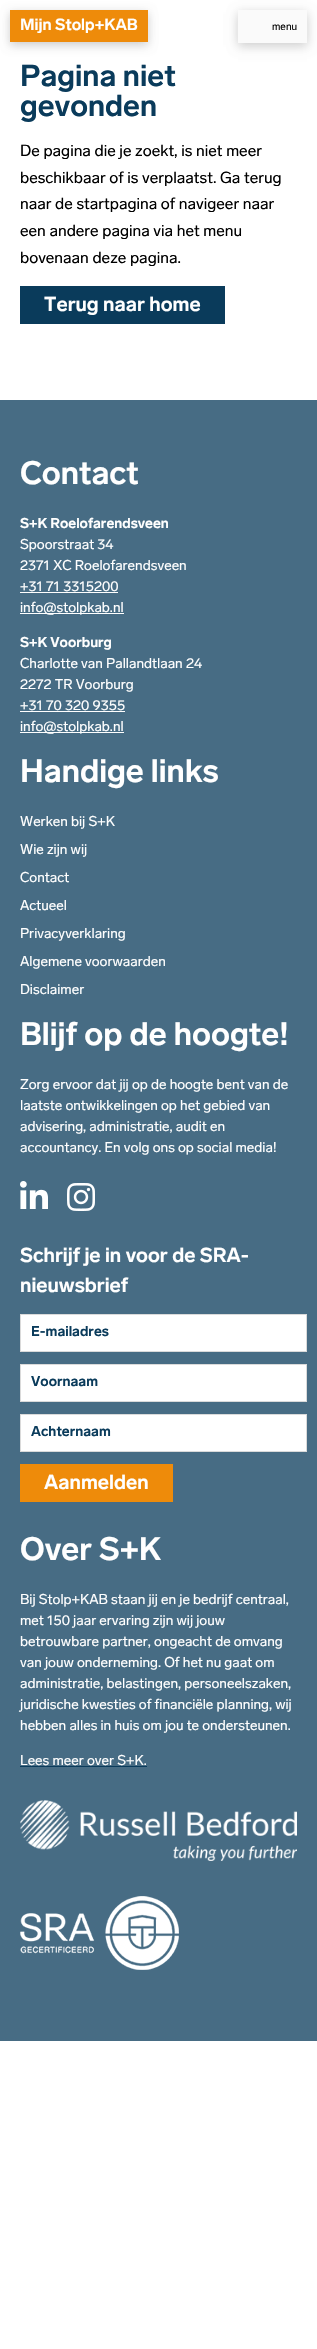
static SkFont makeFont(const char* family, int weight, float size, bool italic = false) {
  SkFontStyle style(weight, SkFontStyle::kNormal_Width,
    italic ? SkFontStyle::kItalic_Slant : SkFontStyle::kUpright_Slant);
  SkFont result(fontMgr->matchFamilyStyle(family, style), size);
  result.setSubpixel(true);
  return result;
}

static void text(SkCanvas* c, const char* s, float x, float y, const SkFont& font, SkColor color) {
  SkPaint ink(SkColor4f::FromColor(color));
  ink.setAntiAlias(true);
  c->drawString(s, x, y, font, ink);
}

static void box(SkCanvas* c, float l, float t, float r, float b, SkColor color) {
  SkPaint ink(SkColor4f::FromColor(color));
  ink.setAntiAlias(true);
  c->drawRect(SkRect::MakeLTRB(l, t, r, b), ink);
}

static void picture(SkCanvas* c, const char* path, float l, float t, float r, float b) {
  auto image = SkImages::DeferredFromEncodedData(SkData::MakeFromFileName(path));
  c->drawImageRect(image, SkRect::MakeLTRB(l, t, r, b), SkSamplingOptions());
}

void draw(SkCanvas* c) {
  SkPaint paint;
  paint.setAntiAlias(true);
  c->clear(0xffffffff);
  paint.setColor(0x1a000000);
  paint.setMaskFilter(SkMaskFilter::MakeBlur(kNormal_SkBlurStyle, 5));
  c->drawRect(SkRect::MakeLTRB(10, 12, 148, 44), paint);
  paint.setMaskFilter(nullptr);
  paint.setMaskFilter(SkMaskFilter::MakeBlur(kNormal_SkBlurStyle, 5));
  c->drawRect(SkRect::MakeLTRB(10, 14, 148, 46), paint);
  paint.setMaskFilter(nullptr);
  box(c, 10, 10, 148, 42, 0xffee8b0a);
  SkFont face1 = makeFont("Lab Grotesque", 700, 16);
  text(c, "Mijn Stolp+KAB", 20, 30, face1, 0xffffffff);
  paint.setMaskFilter(SkMaskFilter::MakeBlur(kNormal_SkBlurStyle, 5));
  c->drawRect(SkRect::MakeLTRB(238, 12, 307, 45), paint);
  paint.setMaskFilter(nullptr);
  paint.setMaskFilter(SkMaskFilter::MakeBlur(kNormal_SkBlurStyle, 5));
  c->drawRect(SkRect::MakeLTRB(238, 14, 307, 47), paint);
  paint.setMaskFilter(nullptr);
  box(c, 238, 10, 307, 43, 0xfffafafa);
  SkFont face2 = makeFont("Liberation Sans", 400, 10);
  text(c, "menu", 272, 30, face2, 0xff000000);
  SkFont face3 = makeFont("Lab Grotesque", 700, 30);
  text(c, "Pagina niet", 20, 86, face3, 0xff0a3b5b);
  text(c, "gevonden", 20, 116, face3, 0xff0a3b5b);
  SkFont face4 = makeFont("Lab Grotesque", 400, 16);
  text(c, "De pagina die je zoekt, is niet meer", 20, 156, face4, 0xff000000);
  text(c, "beschikbaar of is verplaatst. Ga terug", 20, 183, face4, 0xff000000);
  text(c, "naar de startpagina of navigeer naar", 20, 209, face4, 0xff000000);
  text(c, "een andere pagina via het menu", 20, 236, face4, 0xff000000);
  text(c, "bovenaan deze pagina.", 20, 263, face4, 0xff000000);
  box(c, 20, 286, 225, 324, 0xff0a3b5b);
  SkFont face5 = makeFont("Lab Grotesque", 700, 20);
  text(c, "Terug naar home", 44, 311, face5, 0xffffffff);
  box(c, 0, 400, 317, 2041, 0xff476c84);
  SkFont face6 = makeFont("Lab Grotesque", 700, 32);
  text(c, "Contact", 20, 484, face6, 0xffffffff);
  SkFont face7 = makeFont("Lab Grotesque", 700, 14);
  text(c, "S+K Roelofarendsveen", 20, 528, face7, 0xffffffff);
  SkFont face8 = makeFont("Lab Grotesque", 400, 14);
  text(c, "Spoorstraat 34", 20, 549, face8, 0xffffffff);
  text(c, "2371 XC Roelofarendsveen", 20, 570, face8, 0xffffffff);
  text(c, "+31 71 3315200", 20, 591, face8, 0xffffffff);
  box(c, 20, 592, 118, 593, 0xffffffff);
  box(c, 20, 613, 124, 614, 0xffffffff);
  text(c, "info@stolpkab.nl", 20, 612, face8, 0xffffffff);
  text(c, "S+K Voorburg", 20, 647, face7, 0xffffffff);
  text(c, "Charlotte van Pallandtlaan 24", 20, 668, face8, 0xffffffff);
  text(c, "2272 TR Voorburg", 20, 689, face8, 0xffffffff);
  text(c, "+31 70 320 9355", 20, 710, face8, 0xffffffff);
  box(c, 20, 711, 125, 712, 0xffffffff);
  box(c, 20, 732, 124, 733, 0xffffffff);
  text(c, "info@stolpkab.nl", 20, 731, face8, 0xffffffff);
  text(c, "Handige links", 20, 782, face6, 0xffffffff);
  text(c, "Werken bij S+K", 20, 826, face8, 0xffffffff);
  text(c, "Wie zijn wij", 20, 854, face8, 0xffffffff);
  text(c, "Contact", 20, 882, face8, 0xffffffff);
  text(c, "Actueel", 20, 910, face8, 0xffffffff);
  text(c, "Privacyverklaring", 20, 938, face8, 0xffffffff);
  text(c, "Algemene voorwaarden", 20, 966, face8, 0xffffffff);
  text(c, "Disclaimer", 20, 994, face8, 0xffffffff);
  text(c, "Blijf op de hoogte!", 20, 1045, face6, 0xffffffff);
  text(c, "Zorg ervoor dat jij op de hoogte bent van de", 20, 1089, face8, 0xffffffff);
  text(c, "laatste ontwikkelingen op het gebied van", 20, 1110, face8, 0xffffffff);
  text(c, "advisering, administratie, audit en", 20, 1131, face8, 0xffffffff);
  text(c, "accountancy. En volg ons op social media!", 20, 1152, face8, 0xffffffff);
  picture(c, "img_01.png", 20, 1181, 48, 1209);
  picture(c, "img_02.png", 67, 1183, 95, 1211);
  text(c, "Schrijf je in voor de SRA-", 20, 1262, face5, 0xffffffff);
  text(c, "nieuwsbrief", 20, 1292, face5, 0xffffffff);
  paint.setColor(0xffffffff);
  c->drawRect(SkRect::MakeLTRB(20.5f, 1314.5f, 306.5f, 1351.5f), paint);
  paint.setStyle(SkPaint::kStroke_Style);
  paint.setStrokeWidth(1);
  paint.setColor(0xffdadada);
  c->drawRect(SkRect::MakeLTRB(20.5f, 1314.5f, 306.5f, 1351.5f), paint);
  text(c, "E-mailadres", 31, 1336, face7, 0xff0a3b5b);
  paint.setStyle(SkPaint::kFill_Style);
  paint.setColor(0xffffffff);
  c->drawRect(SkRect::MakeLTRB(20.5f, 1364.5f, 306.5f, 1401.5f), paint);
  paint.setStyle(SkPaint::kStroke_Style);
  paint.setColor(0xffdadada);
  c->drawRect(SkRect::MakeLTRB(20.5f, 1364.5f, 306.5f, 1401.5f), paint);
  text(c, "Voornaam", 31, 1386, face7, 0xff0a3b5b);
  paint.setStyle(SkPaint::kFill_Style);
  paint.setColor(0xffffffff);
  c->drawRect(SkRect::MakeLTRB(20.5f, 1414.5f, 306.5f, 1451.5f), paint);
  paint.setStyle(SkPaint::kStroke_Style);
  paint.setColor(0xffdadada);
  c->drawRect(SkRect::MakeLTRB(20.5f, 1414.5f, 306.5f, 1451.5f), paint);
  text(c, "Achternaam", 31, 1436, face7, 0xff0a3b5b);
  box(c, 20, 1464, 173, 1502, 0xffee8b0a);
  text(c, "Aanmelden", 44, 1489, face5, 0xffffffff);
  text(c, "Over S+K", 20, 1560, face6, 0xffffffff);
  text(c, "Bij Stolp+KAB staan jij en je bedrijf centraal,", 20, 1604, face8, 0xffffffff);
  text(c, "met 150 jaar ervaring zijn wij jouw", 20, 1625, face8, 0xffffffff);
  text(c, "betrouwbare partner, ongeacht de omvang", 20, 1646, face8, 0xffffffff);
  text(c, "van jouw onderneming. Of het nu gaat om", 20, 1667, face8, 0xffffffff);
  text(c, "administratie, belastingen, personeelszaken,", 20, 1688, face8, 0xffffffff);
  text(c, "juridische kwesties of financiële planning, wij", 20, 1709, face8, 0xffffffff);
  text(c, "hebben alles in huis om jou te ondersteunen.", 20, 1730, face8, 0xffffffff);
  text(c, "Lees meer over S+K.", 20, 1765, face8, 0xffffffff);
  box(c, 20, 1766, 147, 1767, 0xff0a3b5b);
  picture(c, "img_03.png", 20, 1800, 297, 1861);
  picture(c, "img_04.png", 20, 1896, 179, 1970);
}
